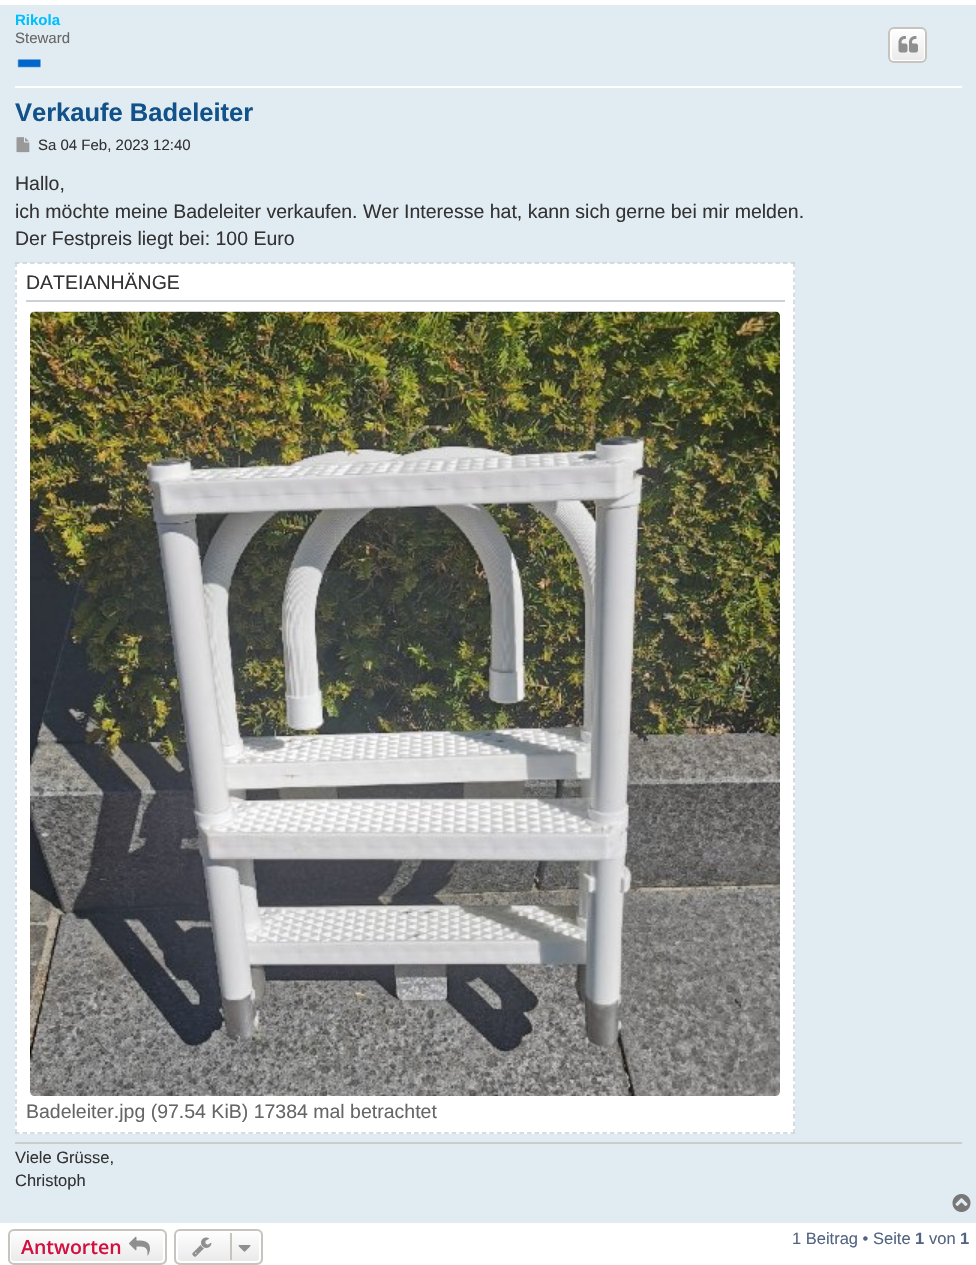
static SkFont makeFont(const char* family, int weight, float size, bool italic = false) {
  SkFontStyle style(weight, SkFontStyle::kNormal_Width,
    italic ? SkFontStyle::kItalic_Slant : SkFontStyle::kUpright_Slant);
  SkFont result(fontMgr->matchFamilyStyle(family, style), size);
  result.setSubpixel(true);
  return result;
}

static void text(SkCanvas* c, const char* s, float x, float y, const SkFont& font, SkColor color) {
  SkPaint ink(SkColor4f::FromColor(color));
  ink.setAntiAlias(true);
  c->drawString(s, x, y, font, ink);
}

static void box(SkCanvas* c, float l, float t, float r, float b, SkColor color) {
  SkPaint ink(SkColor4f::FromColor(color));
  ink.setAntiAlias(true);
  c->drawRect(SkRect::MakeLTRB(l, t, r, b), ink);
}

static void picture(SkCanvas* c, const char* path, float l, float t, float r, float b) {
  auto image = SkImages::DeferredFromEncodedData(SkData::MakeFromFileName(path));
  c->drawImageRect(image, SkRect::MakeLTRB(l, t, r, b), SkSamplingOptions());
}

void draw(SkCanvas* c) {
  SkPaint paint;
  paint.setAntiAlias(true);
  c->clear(0xffffffff);
  box(c, 0, 5, 976, 1223, 0xffe1ebf2);
  box(c, 15, 86, 962, 88, 0xffffffff);
  SkFont face1 = makeFont("Liberation Sans", 700, 15);
  text(c, "Rikola", 15, 25, face1, 0xff00bfff);
  SkFont face2 = makeFont("Liberation Sans", 400, 15);
  text(c, "Steward", 15, 43, face2, 0xff666666);
  picture(c, "img_01.png", 17, 59, 41, 68);
  c->save();
  c->clipPath(SkPathBuilder().moveTo(894, 27).lineTo(921, 27).cubicTo(924.5f, 27, 927, 29.5f, 927, 33).lineTo(927, 57).cubicTo(927, 60.5f, 924.5f, 63, 921, 63).lineTo(894, 63).cubicTo(890.5f, 63, 888, 60.5f, 888, 57).lineTo(888, 33).cubicTo(888, 29.5f, 890.5f, 27, 894, 27).close().detach(), true);
  {
    const SkColor colors[] = {0xffffffff, 0xffe9e9e9};
    const float stops[] = {0, 1};
    const SkPoint ends[] = {{908, 29}, {908, 62}};
    paint.setShader(SkGradientShader::MakeLinear(ends, colors, stops, 2, SkTileMode::kClamp));
    paint.setAlpha(255);
  }
  c->drawRect(SkRect::MakeLTRB(888, 29, 927, 62), paint);
  c->restore();
  paint.setStyle(SkPaint::kStroke_Style);
  paint.setStrokeWidth(2);
  paint.setShader(nullptr);
  paint.setColor(0xffffffff);
  c->drawRoundRect(SkRect::MakeLTRB(891, 30, 925, 61), 4, 4, paint);
  paint.setColor(0xffc7c3bf);
  c->drawRoundRect(SkRect::MakeLTRB(889, 28, 926, 62), 5, 5, paint);
  picture(c, "img_02.png", 898, 36, 918, 53);
  SkFont face3 = makeFont("Liberation Sans", 700, 25.5f);
  text(c, "Verkaufe Badeleiter", 15, 121, face3, 0xff105289);
  picture(c, "img_03.png", 16, 137, 30, 153);
  text(c, "Sa 04 Feb, 2023 12:40", 38, 150, face2, 0xff333333);
  SkFont face4 = makeFont("Liberation Sans", 400, 19.5f);
  text(c, "Hallo,", 15, 190, face4, 0xff333333);
  text(c, "ich möchte meine Badeleiter verkaufen. Wer Interesse hat, kann sich gerne bei mir melden.", 15, 218, face4, 0xff333333);
  text(c, "Der Festpreis liegt bei: 100 Euro", 15, 245, face4, 0xff333333);
  box(c, 15, 263, 795, 1134, 0xffffffff);
  paint.setStrokeWidth(1.5f);
  paint.setColor(0xffc9d2d8);
  paint.setPathEffect(SkDashPathEffect::Make({{4.5f, 3.03f}}, 0));
  c->drawPath(SkPathBuilder().moveTo(15, 263).lineTo(795, 263).detach(), paint);
  paint.setPathEffect(nullptr);
  paint.setPathEffect(SkDashPathEffect::Make({{4.5f, 2.97f}}, 0));
  c->drawPath(SkPathBuilder().moveTo(794, 262.5f).lineTo(794, 1134).detach(), paint);
  paint.setPathEffect(nullptr);
  paint.setPathEffect(SkDashPathEffect::Make({{4.5f, 3.03f}}, 0));
  c->drawPath(SkPathBuilder().moveTo(15, 1133).lineTo(795, 1133).detach(), paint);
  paint.setPathEffect(nullptr);
  paint.setPathEffect(SkDashPathEffect::Make({{4.5f, 2.97f}}, 0));
  c->drawPath(SkPathBuilder().moveTo(16, 262.5f).lineTo(16, 1134).detach(), paint);
  paint.setPathEffect(nullptr);
  text(c, "DATEIANHÄNGE", 26, 289, face4, 0xff333333);
  box(c, 26, 300, 785, 302, 0xffc9d2d8);
  picture(c, "img_04.png", 30, 311, 780, 1096);
  text(c, "Badeleiter.jpg (97.54 KiB) 17384 mal betrachtet", 26, 1118, face4, 0xff666666);
  box(c, 15, 1142, 962, 1144, 0xffcccccc);
  SkFont face5 = makeFont("Liberation Sans", 400, 16.5f);
  text(c, "Viele Grüsse,", 15, 1163, face5, 0xff333333);
  text(c, "Christoph", 15, 1186, face5, 0xff333333);
  picture(c, "img_05.png", 952, 1194, 971, 1212);
  c->save();
  c->clipPath(SkPathBuilder().moveTo(14, 1229).lineTo(161, 1229).cubicTo(164.5f, 1229, 167, 1231.5f, 167, 1235).lineTo(167, 1259).cubicTo(167, 1262.5f, 164.5f, 1265, 161, 1265).lineTo(14, 1265).cubicTo(10.5f, 1265, 8, 1262.5f, 8, 1259).lineTo(8, 1235).cubicTo(8, 1231.5f, 10.5f, 1229, 14, 1229).close().detach(), true);
  paint.setStyle(SkPaint::kFill_Style);
  {
    const SkColor colors[] = {0xffffffff, 0xffe9e9e9};
    const float stops[] = {0, 1};
    const SkPoint ends[] = {{87, 1230}, {87, 1263}};
    paint.setShader(SkGradientShader::MakeLinear(ends, colors, stops, 2, SkTileMode::kClamp));
    paint.setAlpha(255);
  }
  c->drawRect(SkRect::MakeLTRB(8, 1230, 167, 1263), paint);
  c->restore();
  paint.setStyle(SkPaint::kStroke_Style);
  paint.setStrokeWidth(2);
  paint.setShader(nullptr);
  paint.setColor(0xffffffff);
  c->drawRoundRect(SkRect::MakeLTRB(10, 1231, 164, 1262), 4, 4, paint);
  paint.setColor(0xffc7c3bf);
  c->drawRoundRect(SkRect::MakeLTRB(9, 1230, 166, 1264), 5, 5, paint);
  SkFont face6 = makeFont("Open Sans", 600, 19.5f);
  text(c, "Antworten", 21, 1254, face6, 0xffd31141);
  picture(c, "img_06.png", 129, 1236, 150, 1256);
  c->save();
  c->clipPath(SkPathBuilder().moveTo(180, 1229).lineTo(257, 1229).cubicTo(260.5f, 1229, 263, 1231.5f, 263, 1235).lineTo(263, 1259).cubicTo(263, 1262.5f, 260.5f, 1265, 257, 1265).lineTo(180, 1265).cubicTo(176.5f, 1265, 174, 1262.5f, 174, 1259).lineTo(174, 1235).cubicTo(174, 1231.5f, 176.5f, 1229, 180, 1229).close().detach(), true);
  paint.setStyle(SkPaint::kFill_Style);
  {
    const SkColor colors[] = {0xffffffff, 0xffe9e9e9};
    const float stops[] = {0, 1};
    const SkPoint ends[] = {{218, 1230}, {218, 1263}};
    paint.setShader(SkGradientShader::MakeLinear(ends, colors, stops, 2, SkTileMode::kClamp));
    paint.setAlpha(255);
  }
  c->drawRect(SkRect::MakeLTRB(174, 1230, 263, 1263), paint);
  c->restore();
  paint.setStyle(SkPaint::kStroke_Style);
  paint.setShader(nullptr);
  paint.setColor(0xffffffff);
  c->drawRoundRect(SkRect::MakeLTRB(177, 1231, 260, 1262), 4, 4, paint);
  paint.setColor(0xffc7c3bf);
  c->drawRoundRect(SkRect::MakeLTRB(175, 1230, 262, 1264), 5, 5, paint);
  picture(c, "img_07.png", 192, 1237, 212, 1257);
  box(c, 230, 1233, 232, 1260, 0xffc7c3bf);
  picture(c, "img_08.png", 238, 1245, 251, 1252);
  text(c, "1 Beitrag • Seite", 792, 1244, face5, 0xff536482);
  SkFont face7 = makeFont("Liberation Sans", 700, 16.5f);
  text(c, "1", 915, 1244, face7, 0xff536482);
  text(c, "von", 929, 1244, face5, 0xff536482);
  text(c, "1", 960, 1244, face7, 0xff536482);
}
